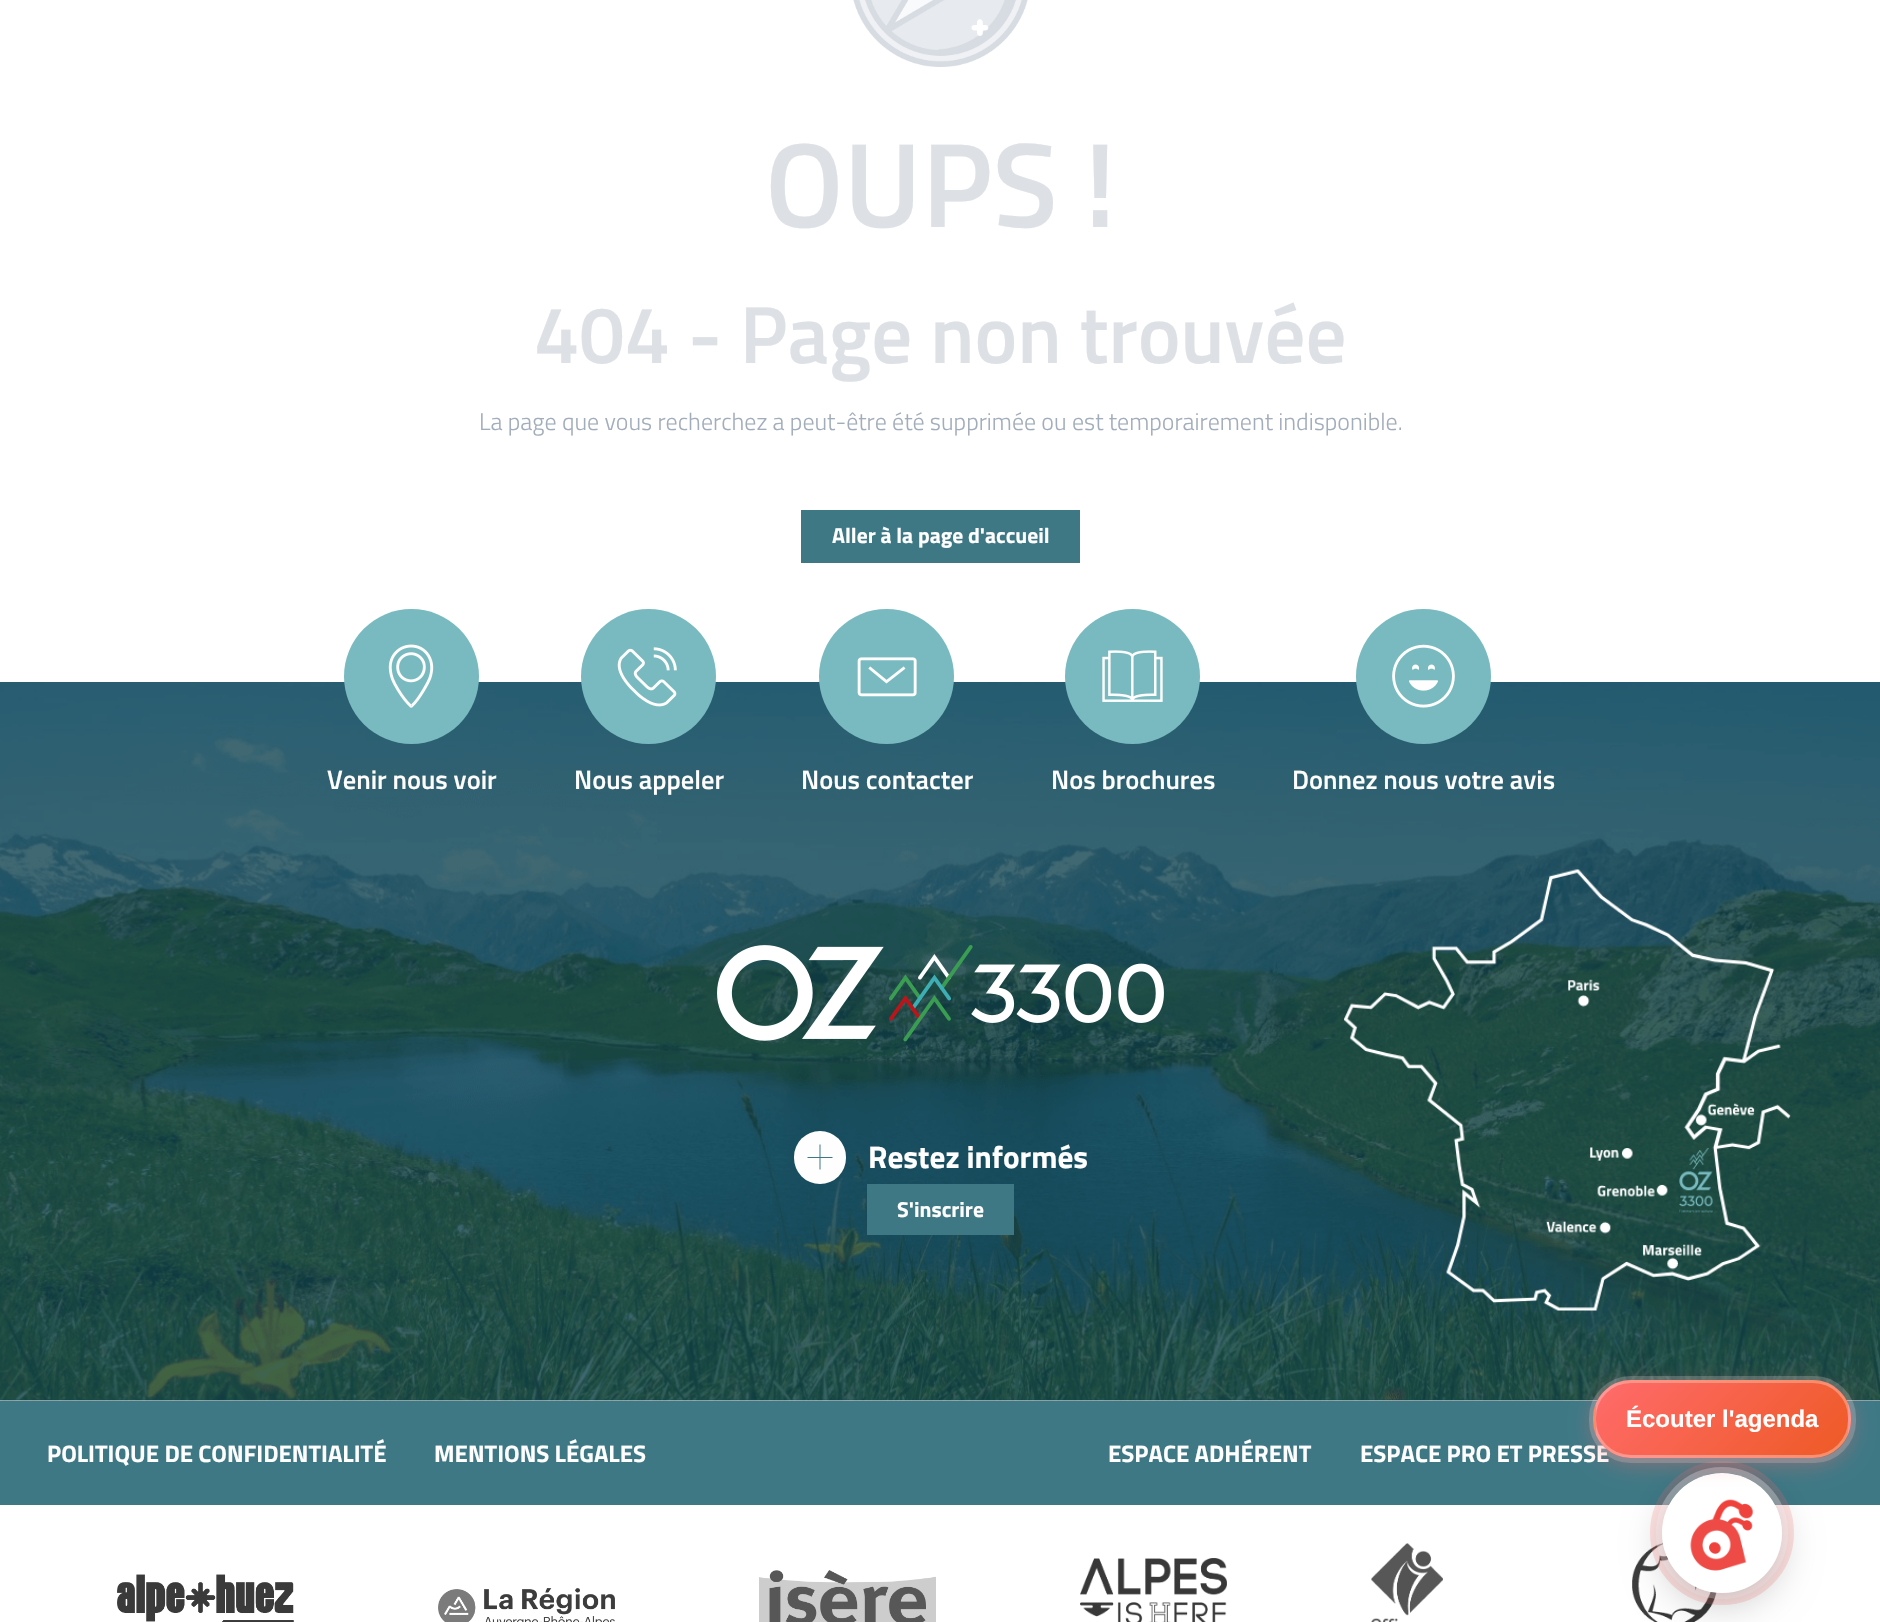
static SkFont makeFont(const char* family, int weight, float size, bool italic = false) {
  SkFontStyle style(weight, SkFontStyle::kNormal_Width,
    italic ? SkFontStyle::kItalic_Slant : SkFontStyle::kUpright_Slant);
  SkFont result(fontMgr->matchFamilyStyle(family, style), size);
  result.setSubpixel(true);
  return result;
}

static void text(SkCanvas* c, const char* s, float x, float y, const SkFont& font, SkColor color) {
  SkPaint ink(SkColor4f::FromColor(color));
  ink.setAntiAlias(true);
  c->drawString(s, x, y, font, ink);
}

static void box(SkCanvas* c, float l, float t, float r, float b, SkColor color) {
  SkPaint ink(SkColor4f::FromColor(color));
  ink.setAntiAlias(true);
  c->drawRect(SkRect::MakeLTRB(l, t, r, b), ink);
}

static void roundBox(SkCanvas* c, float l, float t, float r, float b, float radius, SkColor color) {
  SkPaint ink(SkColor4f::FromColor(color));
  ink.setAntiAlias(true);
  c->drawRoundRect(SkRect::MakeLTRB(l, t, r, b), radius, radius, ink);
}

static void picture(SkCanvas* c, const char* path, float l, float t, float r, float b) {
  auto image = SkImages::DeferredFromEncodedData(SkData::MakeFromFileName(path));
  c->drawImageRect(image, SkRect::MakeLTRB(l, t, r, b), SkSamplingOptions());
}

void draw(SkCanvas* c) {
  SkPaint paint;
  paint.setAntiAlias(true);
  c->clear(0xffffffff);
  picture(c, "img_01.png", 853, 0, 1028, 67);
  SkFont face1 = makeFont("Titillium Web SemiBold", 600, 120);
  text(c, "OUPS !", 765, 227, face1, 0xffdde1e6);
  SkFont face2 = makeFont("Titillium Web SemiBold", 600, 81);
  text(c, "404 - Page non trouvée", 534, 363, face2, 0xffdde1e6);
  SkFont face3 = makeFont("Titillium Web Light", 300, 24);
  text(c, "La page que vous recherchez a peut-être été supprimée ou est temporairement indisponible.", 479, 430, face3, 0xffa2adbb);
  box(c, 801, 510, 1080, 563, 0xff3e7885);
  SkFont face4 = makeFont("Titillium Web", 700, 21.6f);
  text(c, "Aller à la page d'accueil", 832, 543, face4, 0xfffefefe);
  picture(c, "img_02.png", 0, 682, 1880, 1401);
  paint.setColor(0xff78babf);
  c->drawCircle(411.5f, 676.5f, 67.5f, paint);
  picture(c, "img_03.png", 388, 644, 434, 708);
  SkFont face5 = makeFont("Titillium Web SemiBold", 600, 26.5f);
  text(c, "Venir nous voir", 327, 789, face5, 0xfffefefe);
  c->drawCircle(648.5f, 676.5f, 67.5f, paint);
  picture(c, "img_04.png", 617, 647, 677, 707);
  text(c, "Nous appeler", 574, 789, face5, 0xfffefefe);
  c->drawCircle(886.5f, 676.5f, 67.5f, paint);
  picture(c, "img_05.png", 857, 657, 917, 697);
  text(c, "Nous contacter", 801, 789, face5, 0xfffefefe);
  c->drawCircle(1132.5f, 676.5f, 67.5f, paint);
  picture(c, "img_06.png", 1102, 650, 1163, 702);
  text(c, "Nos brochures", 1051, 789, face5, 0xfffefefe);
  c->drawCircle(1423.5f, 676.5f, 67.5f, paint);
  picture(c, "img_07.png", 1392, 644, 1455, 708);
  text(c, "Donnez nous votre avis", 1292, 789, face5, 0xfffefefe);
  picture(c, "img_08.png", 717, 945, 1164, 1042);
  roundBox(c, 794, 1131, 846, 1184, 26, 0xfffefefe);
  paint.setColor(0xff3e7885);
  c->drawPath(SkPathBuilder().moveTo(819.5f, 1144.5f).lineTo(820.5f, 1144.5f).lineTo(820.5f, 1169.5f).lineTo(819.5f, 1169.5f).close().moveTo(807.5f, 1158).lineTo(807.5f, 1157).lineTo(832.5f, 1157).lineTo(832.5f, 1158).close().detach(), paint);
  SkFont face6 = makeFont("Titillium Web", 700, 31.25f);
  text(c, "Restez informés", 868, 1168, face6, 0xfffefefe);
  box(c, 867, 1184, 1014, 1235, 0xff3e7885);
  text(c, "S'inscrire", 897, 1217, face4, 0xfffefefe);
  picture(c, "img_09.png", 1344, 869, 1791, 1311);
  box(c, 0, 1401, 1880, 1505, 0xff3e7885);
  SkFont face7 = makeFont("Titillium Web", 700, 24);
  text(c, "POLITIQUE DE CONFIDENTIALITÉ", 47, 1462, face7, 0xfffefefe);
  text(c, "MENTIONS LÉGALES", 434, 1462, face7, 0xfffefefe);
  text(c, "ESPACE ADHÉRENT", 1108, 1462, face7, 0xfffefefe);
  text(c, "ESPACE PRO ET PRESSE", 1360, 1462, face7, 0xfffefefe);
  picture(c, "img_10.png", 117, 1574, 294, 1622);
  picture(c, "img_11.png", 438, 1588, 615, 1622);
  picture(c, "img_12.png", 759, 1570, 936, 1622);
  picture(c, "img_13.png", 1080, 1558, 1227, 1622);
  picture(c, "img_14.png", 1371, 1543, 1443, 1622);
  picture(c, "img_15.png", 1632, 1542, 1718, 1622);
  paint.setStyle(SkPaint::kStroke_Style);
  paint.setStrokeWidth(12);
  paint.setColor(0x33ff6b6b);
  c->drawCircle(1722, 1533, 66, paint);
  paint.setStrokeWidth(6);
  paint.setColor(0x4dffffff);
  c->drawCircle(1722, 1533, 63, paint);
  paint.setStyle(SkPaint::kFill_Style);
  paint.setColor(0x33000000);
  paint.setMaskFilter(SkMaskFilter::MakeBlur(kNormal_SkBlurStyle, 19));
  c->drawRoundRect(SkRect::MakeLTRB(1662, 1485, 1782, 1605), 60, 60, paint);
  paint.setMaskFilter(nullptr);
  paint.setStyle(SkPaint::kStroke_Style);
  paint.setStrokeWidth(5);
  paint.setColor(0x33ffffff);
  c->drawRoundRect(SkRect::MakeLTRB(1591.5f, 1378.5f, 1853.5f, 1460.5f), 39.5f, 39.5f, paint);
  paint.setStyle(SkPaint::kFill_Style);
  paint.setColor(0xffffffff);
  c->drawCircle(1722, 1533, 60, paint);
  paint.setColor(0x66ff6b6b);
  paint.setMaskFilter(SkMaskFilter::MakeBlur(kNormal_SkBlurStyle, 11));
  c->drawRoundRect(SkRect::MakeLTRB(1593, 1386, 1851, 1464), 38, 38, paint);
  paint.setMaskFilter(nullptr);
  c->save();
  c->clipPath(SkPathBuilder().moveTo(1631, 1380).lineTo(1813, 1380).cubicTo(1834, 1380, 1851, 1397, 1851, 1418).lineTo(1851, 1420).cubicTo(1851, 1441, 1834, 1458, 1813, 1458).lineTo(1631, 1458).cubicTo(1610, 1458, 1593, 1441, 1593, 1420).lineTo(1593, 1418).cubicTo(1593, 1397, 1610, 1380, 1631, 1380).close().detach(), true);
  {
    const SkColor colors[] = {0xffff6b6b, 0xffee5a24};
    const float stops[] = {0, 1};
    const SkPoint ends[] = {{1641, 1266}, {1803, 1428}};
    paint.setShader(SkGradientShader::MakeLinear(ends, colors, stops, 2, SkTileMode::kClamp));
    paint.setAlpha(255);
  }
  c->drawRect(SkRect::MakeLTRB(1616, 1380, 1828, 1383), paint);
  {
    const SkColor colors[] = {0xffff6b6b, 0xffee5a24};
    const float stops[] = {0, 1};
    const SkPoint ends[] = {{1389, 1338}, {1551, 1500}};
    paint.setShader(SkGradientShader::MakeLinear(ends, colors, stops, 2, SkTileMode::kClamp));
    paint.setAlpha(255);
  }
  c->drawRect(SkRect::MakeLTRB(1593, 1403, 1596, 1435), paint);
  {
    const SkColor colors[] = {0xffff6b6b, 0xffee5a24};
    const float stops[] = {0, 1};
    const SkPoint ends[] = {{1641, 1338}, {1803, 1500}};
    paint.setShader(SkGradientShader::MakeLinear(ends, colors, stops, 2, SkTileMode::kClamp));
    paint.setAlpha(255);
  }
  c->drawRect(SkRect::MakeLTRB(1596, 1383, 1848, 1455), paint);
  {
    const SkColor colors[] = {0xffff6b6b, 0xffee5a24};
    const float stops[] = {0, 1};
    const SkPoint ends[] = {{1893, 1338}, {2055, 1500}};
    paint.setShader(SkGradientShader::MakeLinear(ends, colors, stops, 2, SkTileMode::kClamp));
    paint.setAlpha(255);
  }
  c->drawRect(SkRect::MakeLTRB(1848, 1403, 1851, 1435), paint);
  {
    const SkColor colors[] = {0xffff6b6b, 0xffee5a24};
    const float stops[] = {0, 1};
    const SkPoint ends[] = {{1641, 1410}, {1803, 1572}};
    paint.setShader(SkGradientShader::MakeLinear(ends, colors, stops, 2, SkTileMode::kClamp));
    paint.setAlpha(255);
  }
  c->drawRect(SkRect::MakeLTRB(1616, 1455, 1828, 1458), paint);
  c->restore();
  paint.setStyle(SkPaint::kStroke_Style);
  paint.setStrokeWidth(3);
  paint.setShader(nullptr);
  paint.setColor(0x4dffffff);
  c->drawRoundRect(SkRect::MakeLTRB(1594.5f, 1381.5f, 1849.5f, 1456.5f), 36.5f, 36.5f, paint);
  SkFont face8 = makeFont("Liberation Sans", 700, 24);
  text(c, "Écouter l'agenda", 1626, 1427, face8, 0xfffefefe);
  picture(c, "img_16.png", 1690, 1499, 1753, 1571);
}
